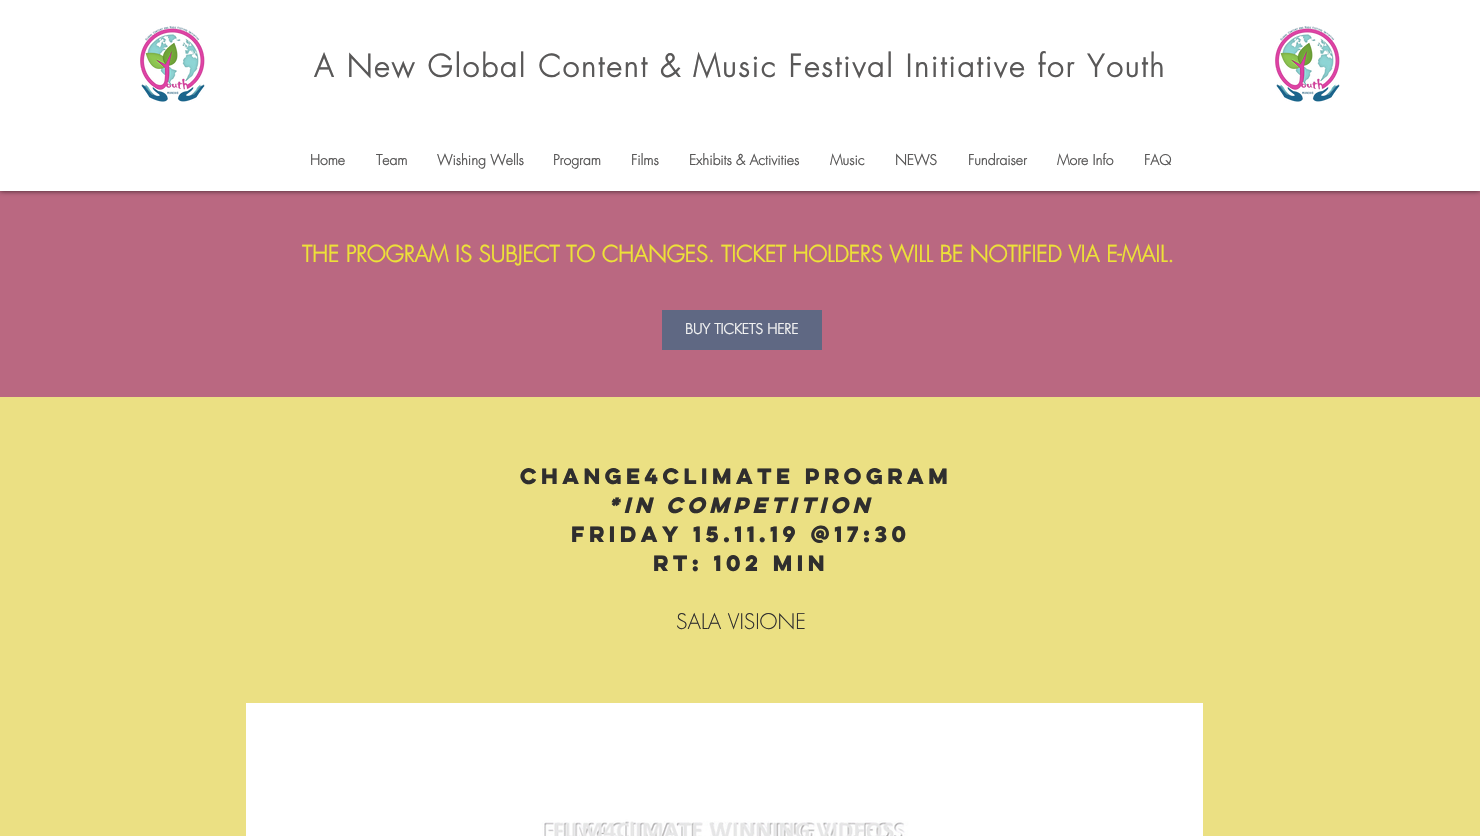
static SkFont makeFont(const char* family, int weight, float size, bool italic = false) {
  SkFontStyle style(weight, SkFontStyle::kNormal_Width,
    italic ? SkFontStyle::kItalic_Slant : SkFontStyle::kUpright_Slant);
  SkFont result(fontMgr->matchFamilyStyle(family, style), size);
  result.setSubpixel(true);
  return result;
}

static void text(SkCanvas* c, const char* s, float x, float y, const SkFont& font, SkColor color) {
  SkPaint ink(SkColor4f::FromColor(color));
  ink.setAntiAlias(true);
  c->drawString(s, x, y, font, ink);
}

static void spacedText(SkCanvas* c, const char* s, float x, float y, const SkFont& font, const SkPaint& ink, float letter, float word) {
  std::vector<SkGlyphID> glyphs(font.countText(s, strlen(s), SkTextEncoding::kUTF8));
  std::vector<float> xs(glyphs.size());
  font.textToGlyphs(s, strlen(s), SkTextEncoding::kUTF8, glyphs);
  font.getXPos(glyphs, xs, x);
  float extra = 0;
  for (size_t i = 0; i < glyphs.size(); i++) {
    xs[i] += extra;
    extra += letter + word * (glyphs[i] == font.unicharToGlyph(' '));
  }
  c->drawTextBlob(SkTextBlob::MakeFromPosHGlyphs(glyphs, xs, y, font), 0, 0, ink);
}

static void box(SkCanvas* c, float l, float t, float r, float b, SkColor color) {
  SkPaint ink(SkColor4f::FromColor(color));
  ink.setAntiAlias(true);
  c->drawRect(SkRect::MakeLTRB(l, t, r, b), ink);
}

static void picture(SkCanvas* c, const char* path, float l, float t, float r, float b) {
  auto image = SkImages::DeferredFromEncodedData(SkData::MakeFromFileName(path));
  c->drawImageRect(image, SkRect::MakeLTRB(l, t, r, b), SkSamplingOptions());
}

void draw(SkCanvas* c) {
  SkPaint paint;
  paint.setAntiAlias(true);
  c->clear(0xffebe083);
  box(c, 0, 191, 1480, 397, 0xffba6881);
  paint.setColor(0xb3000000);
  paint.setMaskFilter(SkMaskFilter::MakeBlur(kNormal_SkBlurStyle, 2.5f));
  c->drawRect(SkRect::MakeLTRB(0, 0, 1480, 191), paint);
  paint.setMaskFilter(nullptr);
  box(c, 0, 0, 1480, 191, 0xffffffff);
  picture(c, "img_01.png", 140, 26, 205, 102);
  SkFont face1 = makeFont("futura", 700, 30);
  paint.setColor(0xff595858);
  spacedText(c, "A New Global Content & Music Festival Initiative for Youth", 314, 77, face1, paint, 2.1f, 0);
  picture(c, "img_01.png", 1275, 26, 1340, 102);
  SkFont face2 = makeFont("futura", 700, 14);
  text(c, "Home", 310, 165, face2, 0xff595858);
  text(c, "Team", 376, 165, face2, 0xff595858);
  text(c, "Wishing Wells", 437, 165, face2, 0xff595858);
  text(c, "Program", 553, 165, face2, 0xff595858);
  text(c, "Films", 631, 165, face2, 0xff595858);
  text(c, "Exhibits & Activities", 689, 165, face2, 0xff595858);
  text(c, "Music", 830, 165, face2, 0xff595858);
  text(c, "NEWS", 895, 165, face2, 0xff595858);
  text(c, "Fundraiser", 968, 165, face2, 0xff595858);
  text(c, "More Info", 1057, 165, face2, 0xff595858);
  text(c, "FAQ", 1144, 165, face2, 0xff595858);
  SkFont face3 = makeFont("futura", 700, 22);
  text(c, "THE PROGRAM IS SUBJECT TO CHANGES. TICKET HOLDERS WILL BE NOTIFIED VIA E-MAIL.", 302, 262, face3, 0xffede138);
  box(c, 662, 310, 822, 350, 0xff5f6883);
  text(c, "BUY TICKETS HERE", 685, 334, face2, 0xfff2f2f2);
  SkFont face4 = makeFont("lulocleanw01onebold", 700, 20);
  text(c, "CHANGE4CLIMATE PROGRAM", 520, 484, face4, 0xff2f2e2e);
  SkFont face5 = makeFont("lulocleanw01onebold", 700, 20, true);
  text(c, "*In Competition", 608, 513, face5, 0xff2f2e2e);
  text(c, "FRIDAY 15.11.19 @17:30", 571, 542, face4, 0xff2f2e2e);
  text(c, "RT: 102 MIN", 653, 571, face4, 0xff2f2e2e);
  SkFont face6 = makeFont("futura", 300, 21);
  text(c, "SALA VISIONE", 676, 629, face6, 0xff2f2e2e);
  picture(c, "img_02.png", 246, 703, 1203, 836);
}
